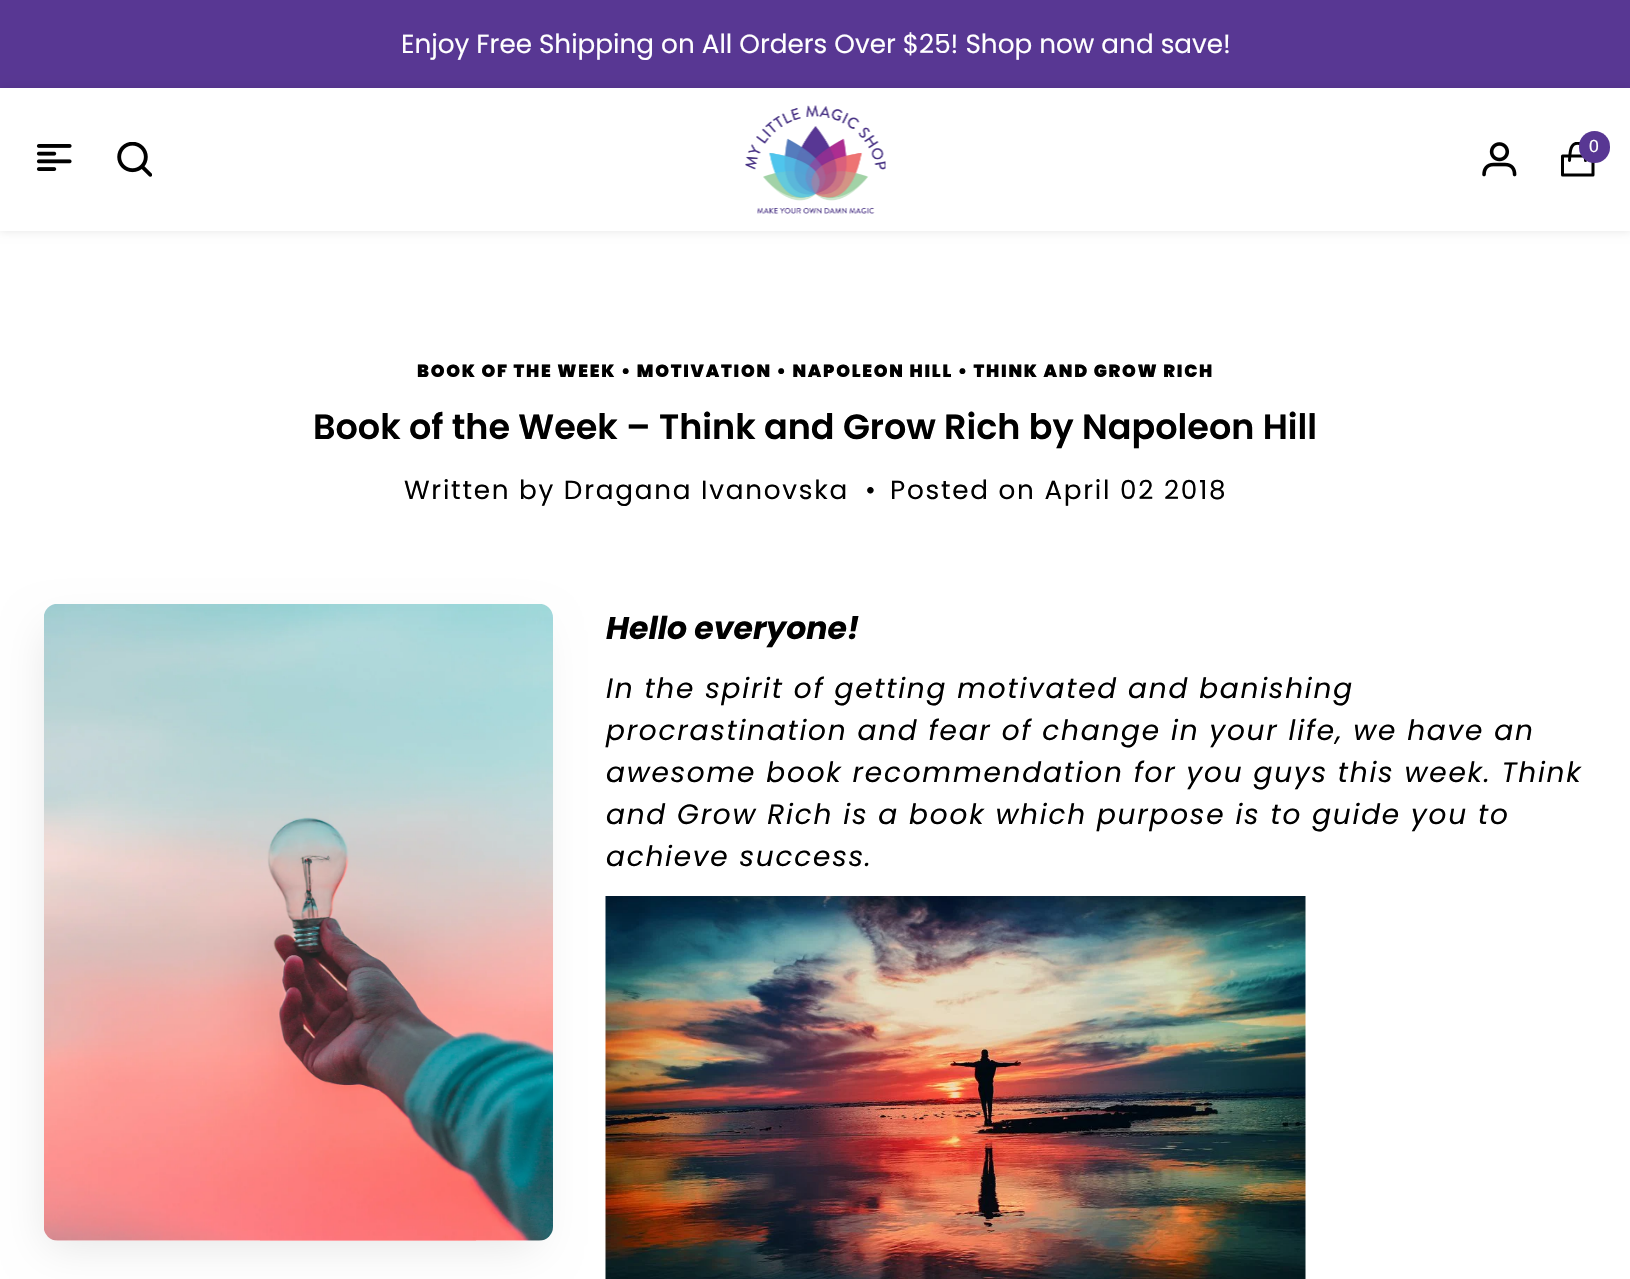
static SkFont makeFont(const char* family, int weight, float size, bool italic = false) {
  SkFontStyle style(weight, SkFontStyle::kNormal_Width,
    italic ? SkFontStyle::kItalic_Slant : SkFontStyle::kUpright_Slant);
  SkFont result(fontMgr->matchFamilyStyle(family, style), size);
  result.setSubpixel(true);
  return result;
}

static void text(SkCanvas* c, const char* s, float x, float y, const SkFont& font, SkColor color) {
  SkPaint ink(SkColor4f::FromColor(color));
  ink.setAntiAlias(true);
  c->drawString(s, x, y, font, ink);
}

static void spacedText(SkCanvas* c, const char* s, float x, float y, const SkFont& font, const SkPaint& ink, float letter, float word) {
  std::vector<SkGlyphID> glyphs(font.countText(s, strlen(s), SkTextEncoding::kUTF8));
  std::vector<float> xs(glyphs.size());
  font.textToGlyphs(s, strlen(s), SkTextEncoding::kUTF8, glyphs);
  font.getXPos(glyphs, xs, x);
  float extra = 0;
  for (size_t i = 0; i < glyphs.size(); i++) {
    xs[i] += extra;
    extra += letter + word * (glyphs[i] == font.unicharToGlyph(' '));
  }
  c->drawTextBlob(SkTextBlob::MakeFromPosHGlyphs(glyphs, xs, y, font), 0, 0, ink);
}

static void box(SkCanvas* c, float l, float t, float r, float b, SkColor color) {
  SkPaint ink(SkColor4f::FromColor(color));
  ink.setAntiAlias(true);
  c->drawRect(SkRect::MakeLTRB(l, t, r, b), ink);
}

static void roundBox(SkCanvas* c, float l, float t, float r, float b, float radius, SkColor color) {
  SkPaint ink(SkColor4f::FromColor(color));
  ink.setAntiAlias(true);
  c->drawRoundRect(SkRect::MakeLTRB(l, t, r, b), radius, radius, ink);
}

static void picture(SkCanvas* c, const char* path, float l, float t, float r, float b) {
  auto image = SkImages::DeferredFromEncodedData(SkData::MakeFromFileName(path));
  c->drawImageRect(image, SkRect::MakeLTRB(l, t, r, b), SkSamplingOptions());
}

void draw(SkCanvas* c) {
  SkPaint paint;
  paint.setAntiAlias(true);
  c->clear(0xffffffff);
  box(c, 0, 0, 1630, 88, 0xff583793);
  SkFont face1 = makeFont("Poppins", 400, 26.25f);
  text(c, "Enjoy Free Shipping on All Orders Over $25! Shop now and save!", 401, 53, face1, 0xffffffff);
  c->save();
  c->clipPath(SkPathBuilder(SkPathFillType::kEvenOdd).moveTo(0, 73).lineTo(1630, 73).lineTo(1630, 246).lineTo(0, 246).close().moveTo(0, 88).lineTo(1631, 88).lineTo(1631, 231).lineTo(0, 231).close().detach(), true);
  paint.setColor(0x1a000000);
  paint.setMaskFilter(SkMaskFilter::MakeBlur(kNormal_SkBlurStyle, 4.5f));
  c->drawRect(SkRect::MakeLTRB(0, 88, 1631, 231), paint);
  paint.setMaskFilter(nullptr);
  c->restore();
  picture(c, "img_01.png", 36, 144, 72, 171);
  picture(c, "img_02.png", 117, 142, 152, 177);
  picture(c, "img_03.png", 745, 105, 886, 214);
  picture(c, "img_04.png", 1482, 142, 1517, 177);
  c->save();
  c->clipRect(SkRect::MakeLTRB(1561, 142, 1596, 177));
  paint.setStyle(SkPaint::kStroke_Style);
  paint.setStrokeWidth(3);
  paint.setStrokeCap(SkPaint::kRound_Cap);
  paint.setStrokeJoin(SkPaint::kBevel_Join);
  paint.setColor(0xff000000);
  c->drawPath(SkPathBuilder().moveTo(1585.5f, 160.5f).cubicTo(1585.5f, 156.5f, 1585.5f, 152, 1584.5f, 148.5f).cubicTo(1583.5f, 146, 1582, 144, 1579.5f, 143.5f).cubicTo(1569.5f, 141.5f, 1570, 154, 1569.5f, 160.5f).detach(), paint);
  c->restore();
  paint.setStrokeCap(SkPaint::kButt_Cap);
  paint.setStrokeJoin(SkPaint::kRound_Join);
  c->drawPath(SkPathBuilder().moveTo(1562.5f, 156).lineTo(1593, 156).lineTo(1593, 175).lineTo(1562.5f, 175).close().detach(), paint);
  roundBox(c, 1579, 131, 1610, 163, 15.5f, 0xff583793);
  SkFont face2 = makeFont("Liberation Sans", 400, 17.5f);
  text(c, "0", 1589, 152, face2, 0xffffffff);
  SkFont face3 = makeFont("Poppins", 900, 17.5f);
  paint.setStyle(SkPaint::kFill_Style);
  spacedText(c, "BOOK OF THE WEEK • MOTIVATION • NAPOLEON HILL • THINK AND GROW RICH", 417, 377, face3, paint, 1.75f, 0);
  SkFont face4 = makeFont("Poppins", 600, 35);
  text(c, "Book of the Week – Think and Grow Rich by Napoleon Hill", 313, 439, face4, 0xff000000);
  spacedText(c, "Written by Dragana Ivanovska", 404, 499, face1, paint, 1.75f, 0);
  text(c, "•", 865, 499, face1, 0xff000000);
  spacedText(c, "Posted on April 02 2018", 890, 499, face1, paint, 1.75f, 0);
  paint.setColor(0x1a000000);
  paint.setMaskFilter(SkMaskFilter::MakeBlur(kNormal_SkBlurStyle, 22));
  c->drawRoundRect(SkRect::MakeLTRB(47, 630, 536, 1246), 4, 4, paint);
  paint.setMaskFilter(nullptr);
  roundBox(c, 44, 604, 553, 1241, 14, 0xffffffff);
  picture(c, "img_05.png", 44, 604, 553, 1241);
  SkFont face5 = makeFont("Poppins", 700, 31.5f, true);
  text(c, "Hello everyone!", 606, 639, face5, 0xff000000);
  SkFont face6 = makeFont("Poppins", 400, 28, true);
  paint.setColor(0xff000000);
  spacedText(c, "In the spirit of getting motivated and banishing", 606, 698, face6, paint, 1.75f, 0);
  spacedText(c, "procrastination and fear of change in your life, we have an", 606, 740, face6, paint, 1.75f, 0);
  spacedText(c, "awesome book recommendation for you guys this week. Think", 606, 782, face6, paint, 1.75f, 0);
  spacedText(c, "and Grow Rich is a book which purpose is to guide you to", 606, 824, face6, paint, 1.75f, 0);
  spacedText(c, "achieve success.", 606, 866, face6, paint, 1.75f, 0);
  picture(c, "img_06.png", 605, 896, 1306, 1279);
}
